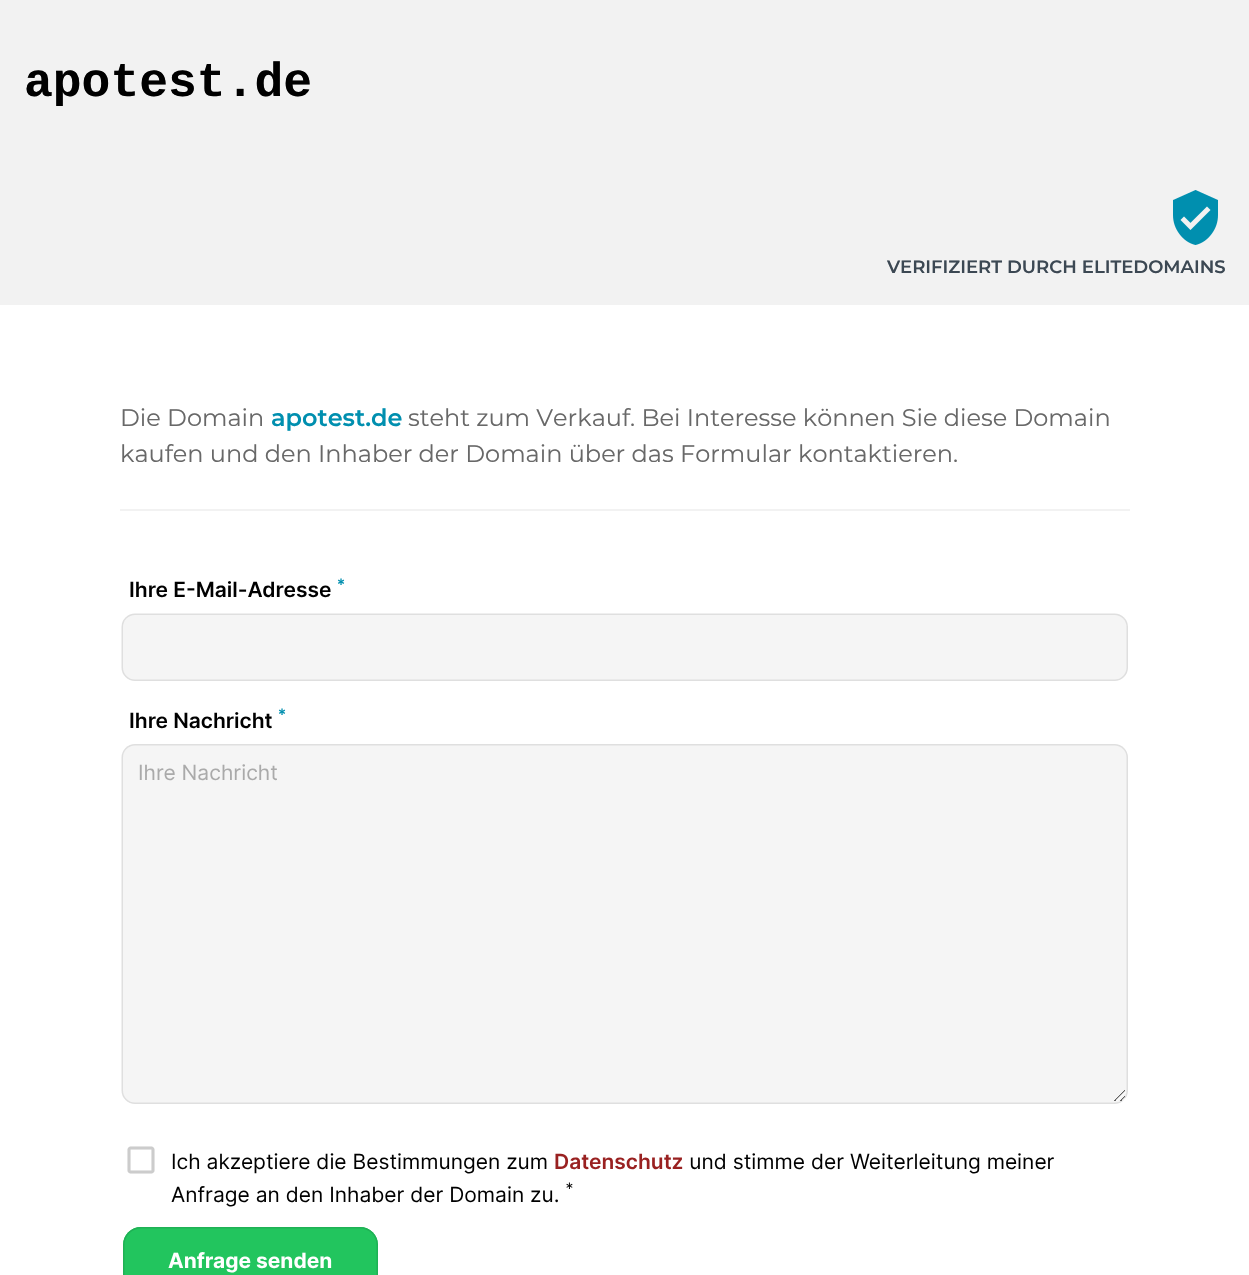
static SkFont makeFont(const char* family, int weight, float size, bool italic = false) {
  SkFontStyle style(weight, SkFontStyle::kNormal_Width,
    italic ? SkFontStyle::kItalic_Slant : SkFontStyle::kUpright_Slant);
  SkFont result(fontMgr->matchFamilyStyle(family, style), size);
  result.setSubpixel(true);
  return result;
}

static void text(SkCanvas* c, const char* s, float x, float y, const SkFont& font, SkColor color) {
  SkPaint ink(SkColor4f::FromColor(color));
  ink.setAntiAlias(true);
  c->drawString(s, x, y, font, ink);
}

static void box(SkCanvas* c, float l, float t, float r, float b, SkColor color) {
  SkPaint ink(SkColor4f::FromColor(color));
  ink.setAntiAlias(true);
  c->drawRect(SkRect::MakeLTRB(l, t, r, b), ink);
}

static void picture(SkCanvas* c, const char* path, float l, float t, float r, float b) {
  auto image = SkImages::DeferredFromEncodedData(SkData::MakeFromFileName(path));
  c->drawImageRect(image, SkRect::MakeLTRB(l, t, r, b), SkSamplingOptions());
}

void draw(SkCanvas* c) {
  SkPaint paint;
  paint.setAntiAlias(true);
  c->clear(0xfff2f2f2);
  SkFont face1 = makeFont("Liberation Mono", 700, 48);
  text(c, "apotest.de", 24, 96, face1, 0xff000000);
  picture(c, "img_01.png", 1173, 190, 1218, 245);
  SkFont face2 = makeFont("Montserrat", 600, 18);
  text(c, "VERIFIZIERT DURCH ELITEDOMAINS", 887, 273, face2, 0xff3c4853);
  box(c, 0, 305, 1249, 1275, 0xffffffff);
  SkFont face3 = makeFont("Montserrat", 400, 24);
  text(c, "Die Domain", 120, 426, face3, 0xff686868);
  SkFont face4 = makeFont("Montserrat", 600, 24);
  text(c, "apotest.de", 271, 426, face4, 0xff008faf);
  text(c, "steht zum Verkauf. Bei Interesse können Sie diese Domain", 408, 426, face3, 0xff686868);
  text(c, "kaufen und den Inhaber der Domain über das Formular kontaktieren.", 120, 462, face3, 0xff686868);
  box(c, 120, 509, 1130, 511, 0xfff2f2f2);
  picture(c, "img_02.png", 121, 578, 1128, 1275);
}
